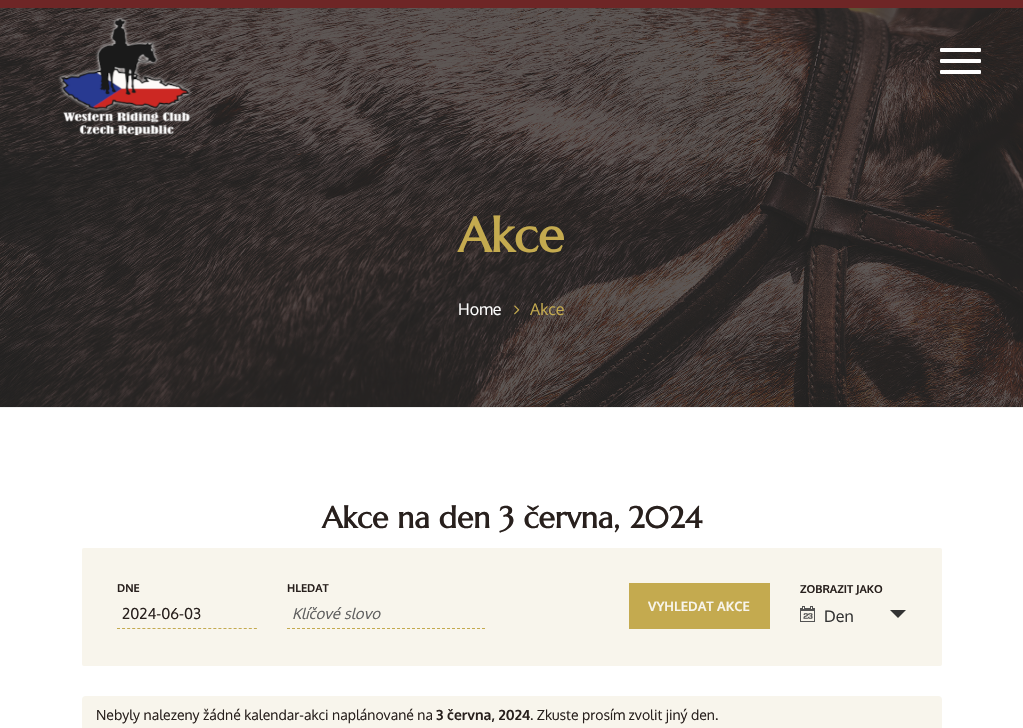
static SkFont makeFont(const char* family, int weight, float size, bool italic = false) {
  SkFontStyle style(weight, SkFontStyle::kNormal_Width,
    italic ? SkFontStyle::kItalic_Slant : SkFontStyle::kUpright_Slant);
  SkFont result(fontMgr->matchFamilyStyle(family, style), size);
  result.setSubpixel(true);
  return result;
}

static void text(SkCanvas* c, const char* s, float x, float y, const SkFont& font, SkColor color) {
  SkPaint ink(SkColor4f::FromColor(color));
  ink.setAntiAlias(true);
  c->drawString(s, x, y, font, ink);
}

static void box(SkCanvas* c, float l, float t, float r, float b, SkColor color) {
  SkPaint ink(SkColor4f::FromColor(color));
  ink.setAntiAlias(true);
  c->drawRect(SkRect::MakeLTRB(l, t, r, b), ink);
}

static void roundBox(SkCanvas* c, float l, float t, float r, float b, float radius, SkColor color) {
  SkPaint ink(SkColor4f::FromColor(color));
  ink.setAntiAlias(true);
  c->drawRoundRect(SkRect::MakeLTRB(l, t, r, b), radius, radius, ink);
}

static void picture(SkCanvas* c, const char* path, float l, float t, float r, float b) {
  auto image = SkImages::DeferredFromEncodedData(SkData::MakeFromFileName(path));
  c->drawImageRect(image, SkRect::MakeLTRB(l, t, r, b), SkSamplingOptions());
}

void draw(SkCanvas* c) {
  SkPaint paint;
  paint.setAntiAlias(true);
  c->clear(0xffffffff);
  box(c, 0, 0, 1023, 8, 0xff6e2626);
  picture(c, "img_02.png", 0, 8, 1023, 407);
  picture(c, "img_01.png", 58, 16, 192, 135);
  roundBox(c, 940, 48, 981, 52, 1, 0xffffffff);
  roundBox(c, 940, 59, 981, 63, 1, 0xffffffff);
  roundBox(c, 940, 70, 981, 74, 1, 0xffffffff);
  box(c, 0, 407, 1023, 408, 0xffeeeeee);
  SkFont face1 = makeFont("Marcellus", 700, 48);
  text(c, "Akce", 458, 252, face1, 0xffc4aa4f);
  SkFont face2 = makeFont("Oxygen", 400, 16);
  text(c, "Home", 458, 315, face2, 0xffffffff);
  picture(c, "img_03.png", 514, 305, 520, 315);
  text(c, "Akce", 530, 315, face2, 0xffc4aa4f);
  SkFont face3 = makeFont("Marcellus", 700, 30);
  text(c, "Akce na den 3 června, 2024", 322, 528, face3, 0xff28201d);
  roundBox(c, 82, 548, 942, 666, 2, 0xfff8f5ec);
  SkFont face4 = makeFont("Oxygen", 700, 11);
  text(c, "DNE", 117, 592, face4, 0xff28201d);
  paint.setStyle(SkPaint::kStroke_Style);
  paint.setStrokeWidth(1);
  paint.setColor(0xffc4aa4f);
  paint.setPathEffect(SkDashPathEffect::Make({{3, 2.07f}}, 0));
  c->drawPath(SkPathBuilder().moveTo(117, 628.5f).lineTo(257, 628.5f).detach(), paint);
  paint.setPathEffect(nullptr);
  SkFont face5 = makeFont("Oxygen", 400, 15);
  text(c, "2024-06-03", 122, 619, face5, 0xff28201d);
  text(c, "HLEDAT", 287, 592, face4, 0xff28201d);
  paint.setPathEffect(SkDashPathEffect::Make({{3, 2}}, 0));
  c->drawPath(SkPathBuilder().moveTo(287, 628.5f).lineTo(485, 628.5f).detach(), paint);
  paint.setPathEffect(nullptr);
  SkFont face6 = makeFont("Oxygen", 400, 15, true);
  text(c, "Klíčové slovo", 292, 619, face6, 0xff5f5f5f);
  box(c, 629, 583, 770, 629, 0xffc4aa4f);
  SkFont face7 = makeFont("Oxygen", 700, 13);
  text(c, "VYHLEDAT AKCE", 648, 611, face7, 0xfff8f5ec);
  text(c, "ZOBRAZIT JAKO", 800, 593, face4, 0xff28201d);
  picture(c, "img_04.png", 800, 606, 815, 622);
  text(c, "Den", 824, 622, face2, 0xff333333);
  paint.setStyle(SkPaint::kFill_Style);
  paint.setColor(0xff333333);
  c->drawPath(SkPathBuilder().moveTo(890, 610).lineTo(906, 610).lineTo(898, 618).close().detach(), paint);
  roundBox(c, 82, 696, 942, 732, 4, 0xfff8f5ec);
  SkFont face8 = makeFont("Oxygen", 400, 14);
  text(c, "Nebyly nalezeny žádné kalendar-akci naplánované na", 96, 720, face8, 0xff28201d);
  SkFont face9 = makeFont("Oxygen", 700, 14);
  text(c, "3 června, 2024", 436, 720, face9, 0xff28201d);
  text(c, ". Zkuste prosím zvolit jiný den.", 530, 720, face8, 0xff28201d);
}
